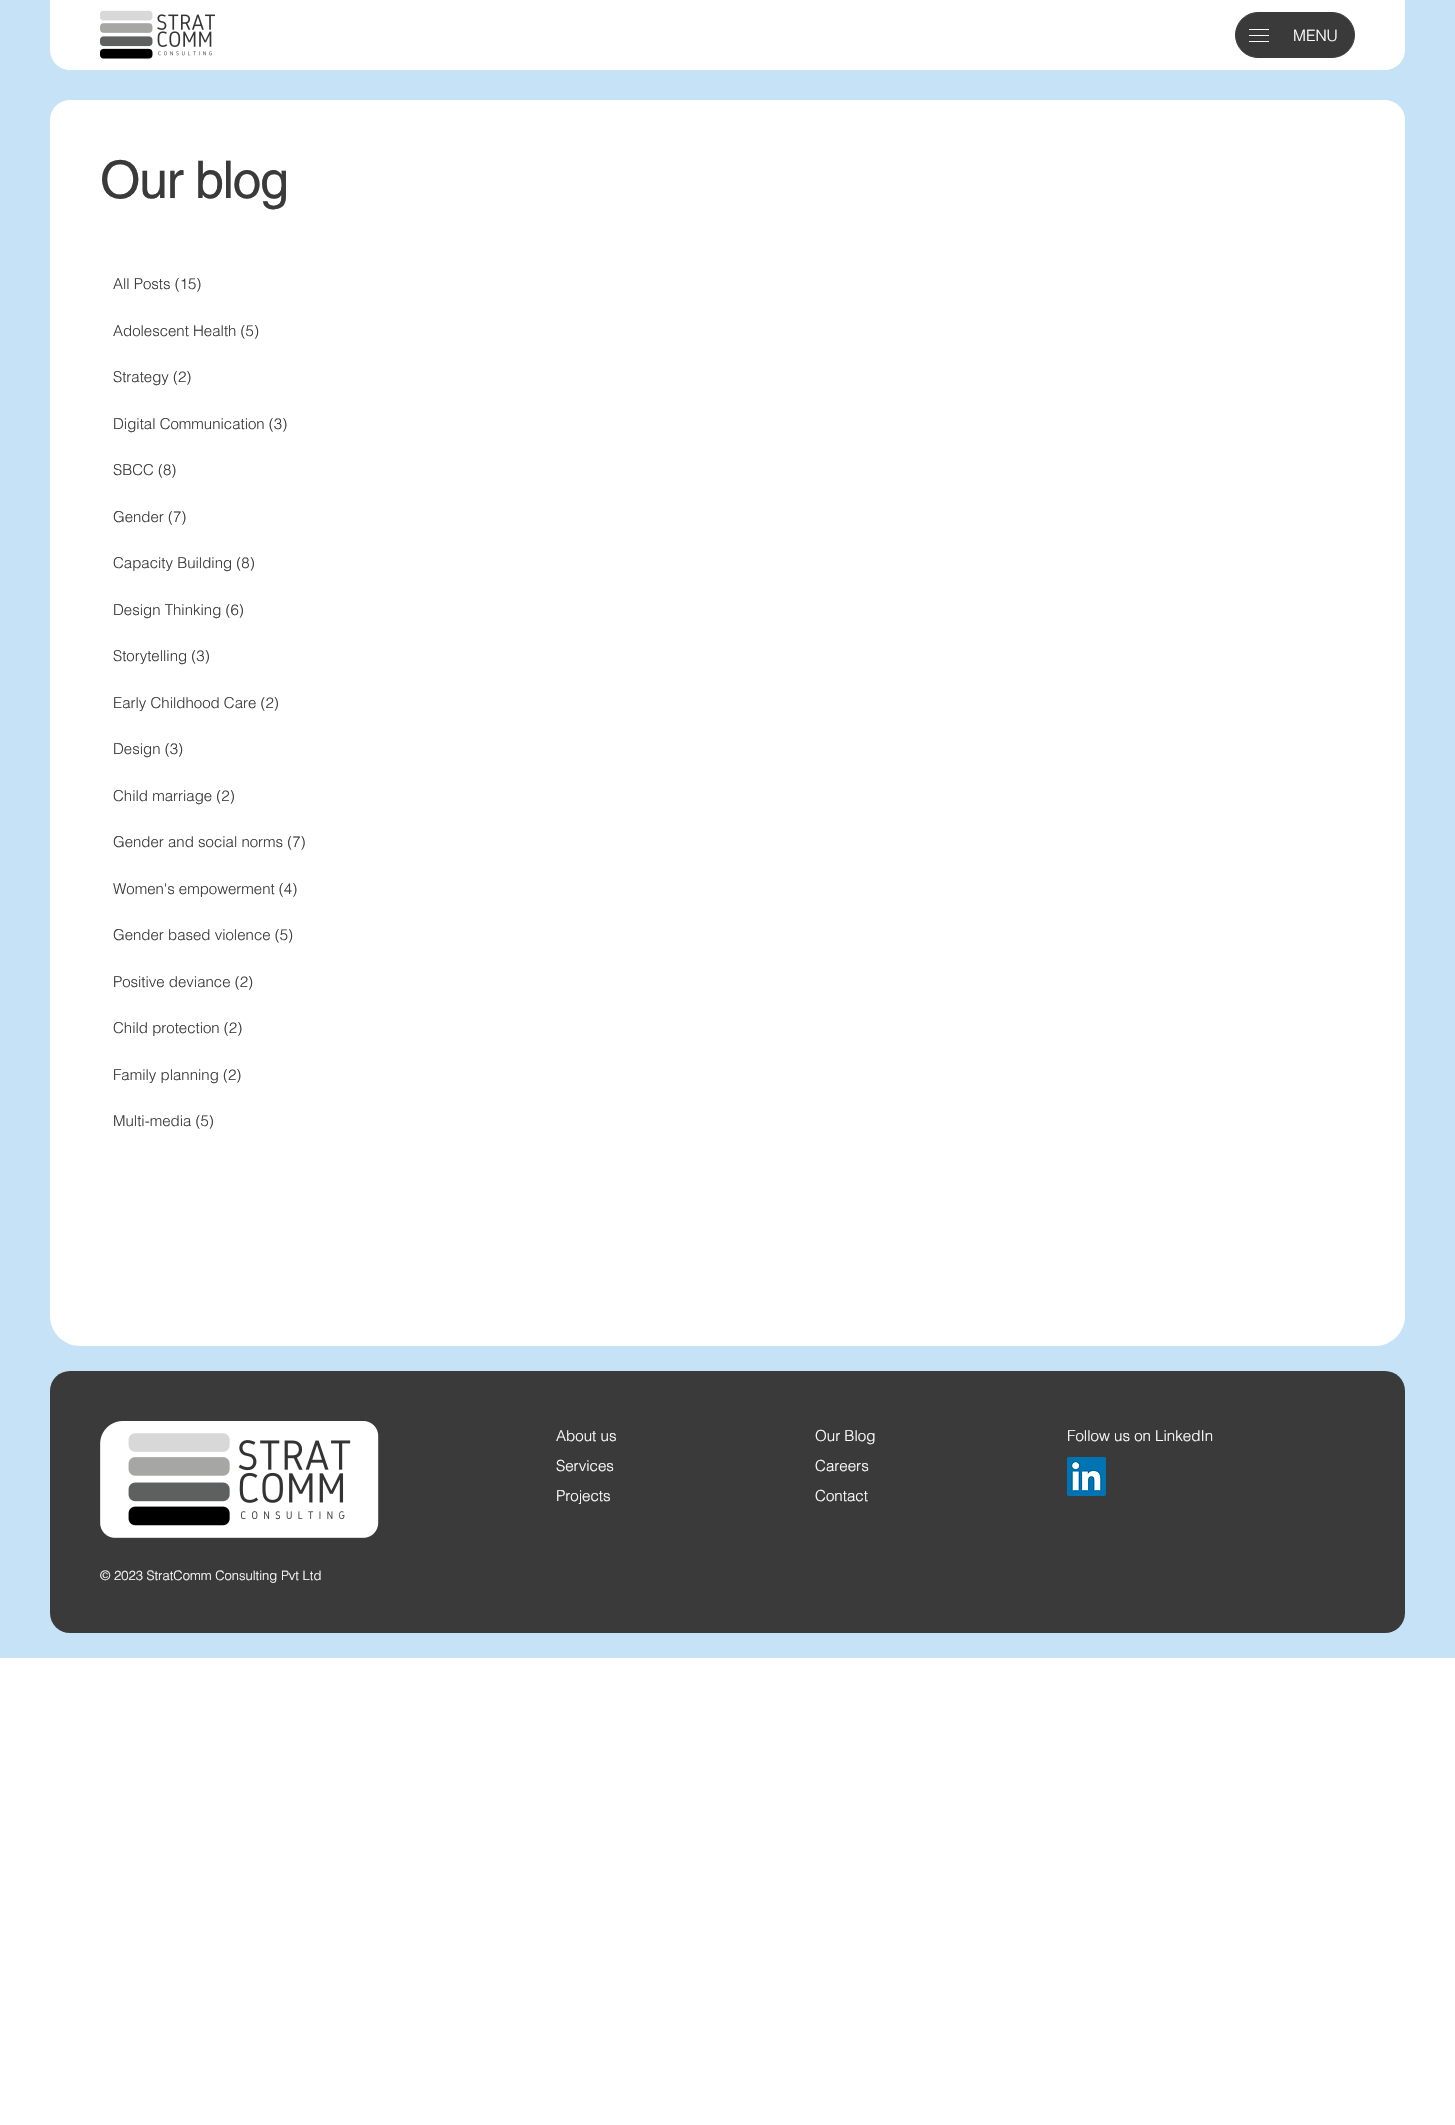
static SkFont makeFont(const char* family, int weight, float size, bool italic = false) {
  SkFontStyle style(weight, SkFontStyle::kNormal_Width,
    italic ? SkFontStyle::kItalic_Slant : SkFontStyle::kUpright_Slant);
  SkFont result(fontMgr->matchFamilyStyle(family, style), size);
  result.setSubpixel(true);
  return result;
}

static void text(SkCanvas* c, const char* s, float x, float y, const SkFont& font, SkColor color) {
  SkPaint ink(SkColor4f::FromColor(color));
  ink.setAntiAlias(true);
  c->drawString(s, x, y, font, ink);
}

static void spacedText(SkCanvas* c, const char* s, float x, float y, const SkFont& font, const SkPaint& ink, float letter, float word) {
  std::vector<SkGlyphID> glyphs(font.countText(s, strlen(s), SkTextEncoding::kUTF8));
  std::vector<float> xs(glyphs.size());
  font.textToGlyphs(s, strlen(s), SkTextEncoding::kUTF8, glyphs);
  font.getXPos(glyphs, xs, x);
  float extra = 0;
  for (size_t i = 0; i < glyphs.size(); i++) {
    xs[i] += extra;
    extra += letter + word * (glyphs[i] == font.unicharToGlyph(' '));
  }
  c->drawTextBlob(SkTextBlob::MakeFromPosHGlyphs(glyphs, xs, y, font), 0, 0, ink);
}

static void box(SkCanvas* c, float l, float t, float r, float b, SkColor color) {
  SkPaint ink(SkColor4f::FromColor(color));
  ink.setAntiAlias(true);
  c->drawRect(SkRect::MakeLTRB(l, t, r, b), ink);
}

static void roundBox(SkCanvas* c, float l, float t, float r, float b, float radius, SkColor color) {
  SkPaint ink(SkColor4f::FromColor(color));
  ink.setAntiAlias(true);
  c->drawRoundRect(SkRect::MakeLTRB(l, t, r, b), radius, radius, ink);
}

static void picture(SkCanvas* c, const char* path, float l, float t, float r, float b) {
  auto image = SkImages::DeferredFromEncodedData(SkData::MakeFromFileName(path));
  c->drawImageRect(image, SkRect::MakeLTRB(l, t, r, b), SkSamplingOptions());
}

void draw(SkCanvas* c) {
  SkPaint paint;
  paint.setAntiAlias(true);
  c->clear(0xffffffff);
  box(c, 0, 0, 1455, 1658, 0xffc6e2f7);
  paint.setColor(0xffffffff);
  c->drawPath(SkPathBuilder().moveTo(50, 0).lineTo(1405, 0).lineTo(1405, 50).cubicTo(1405, 61, 1396, 70, 1385, 70).lineTo(70, 70).cubicTo(59, 70, 50, 61, 50, 50).close().detach(), paint);
  picture(c, "img_01.png", 100, 10, 215, 59);
  paint.setColor(0xff3b3a3a);
  c->drawRoundRect(SkRect::MakeLTRB(1235.5f, 12.5f, 1354.5f, 57.5f), 22.5f, 22.5f, paint);
  paint.setStyle(SkPaint::kStroke_Style);
  paint.setStrokeWidth(1);
  c->drawRoundRect(SkRect::MakeLTRB(1235.5f, 12.5f, 1354.5f, 57.5f), 22.5f, 22.5f, paint);
  box(c, 1249, 29, 1269, 30, 0xffffffff);
  box(c, 1249, 35, 1269, 36, 0xffffffff);
  box(c, 1249, 41, 1269, 42, 0xffffffff);
  SkFont face1 = makeFont("helvetica", 300, 15.5f);
  text(c, "MENU", 1293, 41, face1, 0xffffffff);
  paint.setStyle(SkPaint::kFill_Style);
  paint.setColor(0xffffffff);
  c->drawPath(SkPathBuilder().moveTo(70, 100).lineTo(1385, 100).cubicTo(1396, 100, 1405, 109, 1405, 120).lineTo(1405, 1316).cubicTo(1405, 1332.5f, 1391.5f, 1346, 1375, 1346).lineTo(80, 1346).cubicTo(63.5f, 1346, 50, 1332.5f, 50, 1316).lineTo(50, 120).cubicTo(50, 109, 59, 100, 70, 100).close().detach(), paint);
  SkFont face2 = makeFont("helvetica", 400, 52);
  paint.setColor(0xff3b3a3a);
  spacedText(c, "Our blog", 100, 198, face2, paint, -1.5f, 0);
  SkFont face3 = makeFont("helvetica", 300, 15);
  text(c, "All Posts (15)", 113, 289, face3, 0xff3b3a3a);
  text(c, "Adolescent Health (5)", 113, 336, face3, 0xff3b3a3a);
  text(c, "Strategy (2)", 113, 382, face3, 0xff3b3a3a);
  text(c, "Digital Communication (3)", 113, 429, face3, 0xff3b3a3a);
  text(c, "SBCC (8)", 113, 475, face3, 0xff3b3a3a);
  text(c, "Gender (7)", 113, 522, face3, 0xff3b3a3a);
  text(c, "Capacity Building (8)", 113, 568, face3, 0xff3b3a3a);
  text(c, "Design Thinking (6)", 113, 615, face3, 0xff3b3a3a);
  text(c, "Storytelling (3)", 113, 661, face3, 0xff3b3a3a);
  text(c, "Early Childhood Care (2)", 113, 708, face3, 0xff3b3a3a);
  text(c, "Design (3)", 113, 754, face3, 0xff3b3a3a);
  text(c, "Child marriage (2)", 113, 801, face3, 0xff3b3a3a);
  text(c, "Gender and social norms (7)", 113, 847, face3, 0xff3b3a3a);
  text(c, "Women's empowerment (4)", 113, 894, face3, 0xff3b3a3a);
  text(c, "Gender based violence (5)", 113, 940, face3, 0xff3b3a3a);
  text(c, "Positive deviance (2)", 113, 987, face3, 0xff3b3a3a);
  text(c, "Child protection (2)", 113, 1033, face3, 0xff3b3a3a);
  text(c, "Family planning (2)", 113, 1080, face3, 0xff3b3a3a);
  text(c, "Multi-media (5)", 113, 1126, face3, 0xff3b3a3a);
  roundBox(c, 50, 1371, 1405, 1633, 20, 0xff3b3a3a);
  picture(c, "img_02.png", 100, 1421, 379, 1538);
  SkFont face4 = makeFont("helvetica", 300, 15.1f);
  text(c, "About us", 556, 1441, face4, 0xffffffff);
  text(c, "Services", 556, 1471, face4, 0xffffffff);
  text(c, "Projects", 556, 1501, face4, 0xffffffff);
  text(c, "Our Blog", 815, 1441, face4, 0xffffffff);
  text(c, "Careers", 815, 1471, face4, 0xffffffff);
  text(c, "Contact", 815, 1501, face4, 0xffffffff);
  text(c, "Follow us on LinkedIn", 1067, 1441, face4, 0xffffffff);
  picture(c, "img_03.png", 1067, 1457, 1106, 1496);
  SkFont face5 = makeFont("helvetica", 300, 13);
  text(c, "© 2023 StratComm Consulting Pvt Ltd", 100, 1580, face5, 0xffffffff);
}
